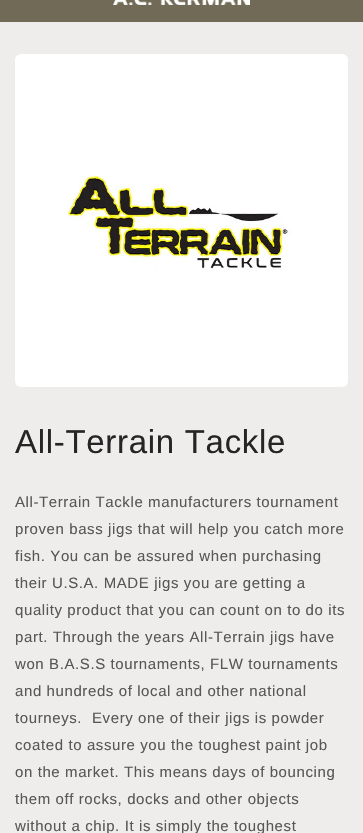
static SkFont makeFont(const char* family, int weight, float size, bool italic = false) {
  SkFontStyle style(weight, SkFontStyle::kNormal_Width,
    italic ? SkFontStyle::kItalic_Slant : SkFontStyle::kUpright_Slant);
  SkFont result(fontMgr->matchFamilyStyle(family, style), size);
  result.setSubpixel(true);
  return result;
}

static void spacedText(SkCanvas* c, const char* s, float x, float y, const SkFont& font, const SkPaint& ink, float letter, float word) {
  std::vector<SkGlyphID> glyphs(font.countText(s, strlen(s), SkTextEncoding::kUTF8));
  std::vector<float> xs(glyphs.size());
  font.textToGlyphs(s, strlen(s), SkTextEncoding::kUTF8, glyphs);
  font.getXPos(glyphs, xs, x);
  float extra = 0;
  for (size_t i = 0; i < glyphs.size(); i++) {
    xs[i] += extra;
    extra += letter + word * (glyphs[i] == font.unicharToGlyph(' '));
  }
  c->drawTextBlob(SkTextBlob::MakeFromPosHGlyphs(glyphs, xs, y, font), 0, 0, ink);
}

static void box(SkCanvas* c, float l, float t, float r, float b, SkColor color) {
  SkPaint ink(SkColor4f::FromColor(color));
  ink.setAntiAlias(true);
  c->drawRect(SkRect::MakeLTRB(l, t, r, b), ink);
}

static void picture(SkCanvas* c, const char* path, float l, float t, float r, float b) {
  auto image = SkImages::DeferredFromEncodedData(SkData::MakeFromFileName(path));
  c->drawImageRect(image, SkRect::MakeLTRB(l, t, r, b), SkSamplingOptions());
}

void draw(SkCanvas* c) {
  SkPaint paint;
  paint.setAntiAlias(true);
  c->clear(0xffefecec);
  box(c, 0, 0, 363, 22, 0xff716a56);
  picture(c, "img_01.png", 113, 0, 250, 5);
  picture(c, "img_02.png", 15, 54, 348, 387);
  SkFont face1 = makeFont("Liberation Sans", 400, 33);
  paint.setColor(0xff252525);
  spacedText(c, "All-Terrain Tackle", 15, 453, face1, paint, 0.7f, 0);
  SkFont face2 = makeFont("Liberation Sans", 400, 15);
  paint.setColor(0xff585757);
  spacedText(c, "All-Terrain Tackle manufacturers tournament", 15, 507, face2, paint, 0.6f, 0);
  spacedText(c, "proven bass jigs that will help you catch more", 15, 534, face2, paint, 0.6f, 0);
  spacedText(c, "fish. You can be assured when purchasing", 15, 561, face2, paint, 0.6f, 0);
  spacedText(c, "their U.S.A. MADE jigs you are getting a", 15, 588, face2, paint, 0.6f, 0);
  spacedText(c, "quality product that you can count on to do its", 15, 615, face2, paint, 0.6f, 0);
  spacedText(c, "part. Through the years All-Terrain jigs have", 15, 642, face2, paint, 0.6f, 0);
  spacedText(c, "won B.A.S.S tournaments, FLW tournaments", 15, 669, face2, paint, 0.6f, 0);
  spacedText(c, "and hundreds of local and other national", 15, 696, face2, paint, 0.6f, 0);
  spacedText(c, "tourneys.", 15, 723, face2, paint, 0.6f, 0);
  spacedText(c, "Every one of their jigs is powder", 92, 723, face2, paint, 0.6f, 0);
  spacedText(c, "coated to assure you the toughest paint job", 15, 750, face2, paint, 0.6f, 0);
  spacedText(c, "on the market. This means days of bouncing", 15, 777, face2, paint, 0.6f, 0);
  spacedText(c, "them off rocks, docks and other objects", 15, 804, face2, paint, 0.6f, 0);
  spacedText(c, "without a chip. It is simply the toughest", 15, 831, face2, paint, 0.6f, 0);
}
